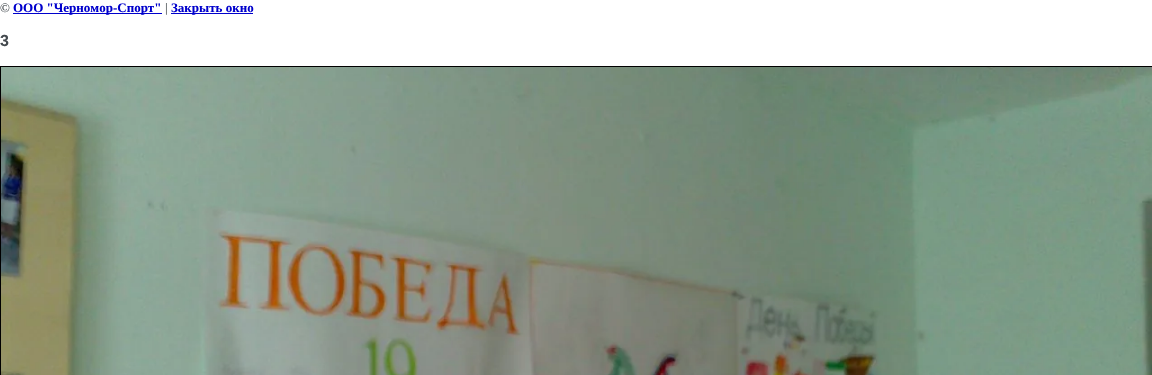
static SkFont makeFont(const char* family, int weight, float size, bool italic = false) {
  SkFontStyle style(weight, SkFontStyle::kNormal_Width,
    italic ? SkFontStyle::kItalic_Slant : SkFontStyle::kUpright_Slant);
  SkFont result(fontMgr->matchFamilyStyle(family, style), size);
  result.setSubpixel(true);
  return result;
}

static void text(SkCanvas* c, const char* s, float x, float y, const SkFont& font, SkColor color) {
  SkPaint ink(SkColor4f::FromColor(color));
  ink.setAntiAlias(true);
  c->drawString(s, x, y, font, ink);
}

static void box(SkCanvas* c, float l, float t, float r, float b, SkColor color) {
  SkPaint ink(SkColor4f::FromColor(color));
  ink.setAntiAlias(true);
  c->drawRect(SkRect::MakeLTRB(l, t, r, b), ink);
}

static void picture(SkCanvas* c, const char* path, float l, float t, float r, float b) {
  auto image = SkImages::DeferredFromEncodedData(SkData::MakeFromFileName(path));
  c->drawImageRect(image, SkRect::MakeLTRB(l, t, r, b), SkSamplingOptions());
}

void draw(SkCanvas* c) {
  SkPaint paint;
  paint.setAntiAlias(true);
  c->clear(0xffffffff);
  SkFont face1 = makeFont("Liberation Serif", 400, 13);
  text(c, "©", 0, 12, face1, 0xff43494e);
  box(c, 13, 13, 162, 14, 0xff0000cc);
  SkFont face2 = makeFont("Liberation Serif", 700, 13);
  text(c, "ООО \"Черномор-Спорт\"", 13, 12, face2, 0xff0000cc);
  text(c, "|", 165, 12, face1, 0xff43494e);
  box(c, 171, 13, 253, 14, 0xff0000cc);
  text(c, "Закрыть окно", 171, 12, face2, 0xff0000cc);
  SkFont face3 = makeFont("Liberation Sans", 700, 16);
  text(c, "3", 0, 46, face3, 0xff43494e);
  paint.setStyle(SkPaint::kStroke_Style);
  paint.setStrokeWidth(1);
  paint.setColor(0xff000000);
  c->drawRect(SkRect::MakeLTRB(0.5f, 66.5f, 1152.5f, 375.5f), paint);
  picture(c, "img_01.png", 1, 67, 1152, 375);
}
